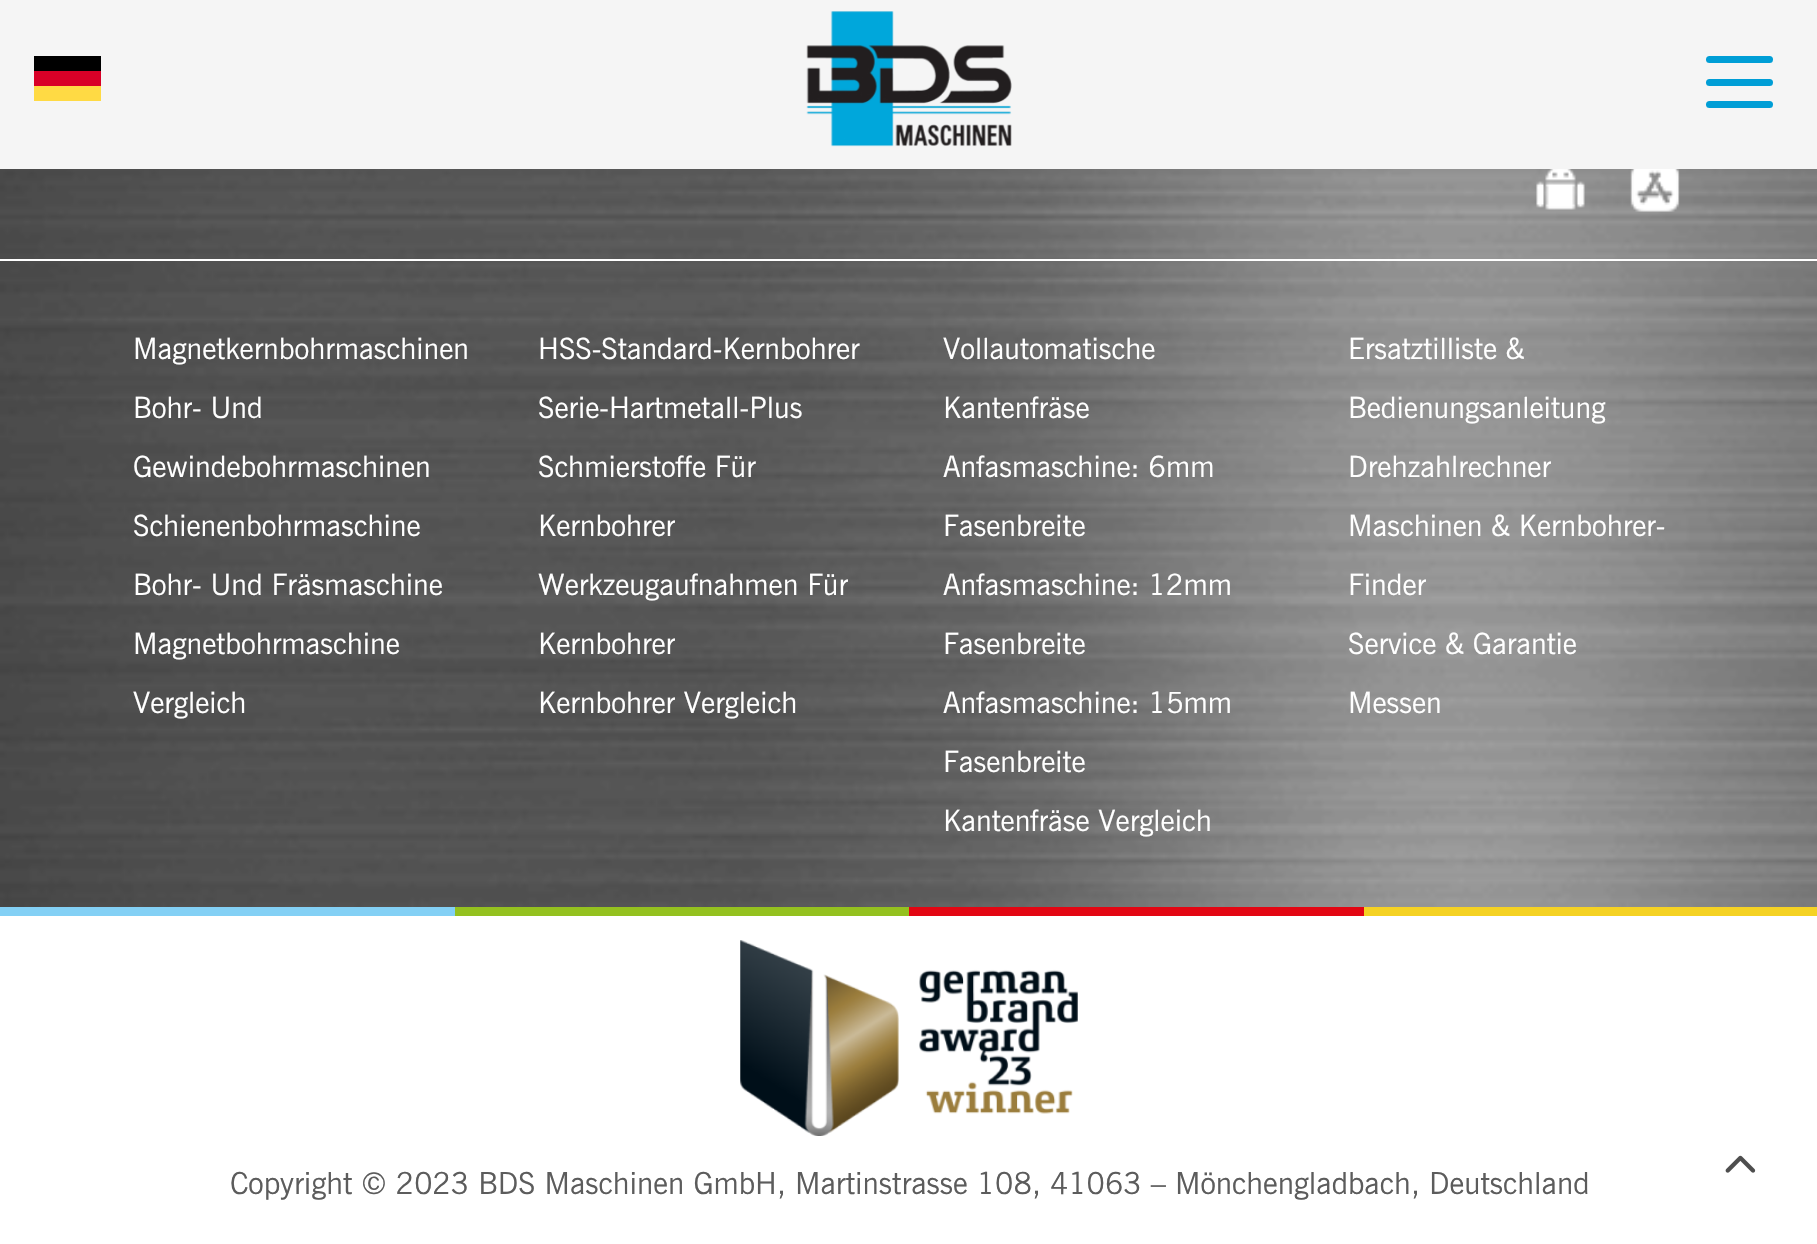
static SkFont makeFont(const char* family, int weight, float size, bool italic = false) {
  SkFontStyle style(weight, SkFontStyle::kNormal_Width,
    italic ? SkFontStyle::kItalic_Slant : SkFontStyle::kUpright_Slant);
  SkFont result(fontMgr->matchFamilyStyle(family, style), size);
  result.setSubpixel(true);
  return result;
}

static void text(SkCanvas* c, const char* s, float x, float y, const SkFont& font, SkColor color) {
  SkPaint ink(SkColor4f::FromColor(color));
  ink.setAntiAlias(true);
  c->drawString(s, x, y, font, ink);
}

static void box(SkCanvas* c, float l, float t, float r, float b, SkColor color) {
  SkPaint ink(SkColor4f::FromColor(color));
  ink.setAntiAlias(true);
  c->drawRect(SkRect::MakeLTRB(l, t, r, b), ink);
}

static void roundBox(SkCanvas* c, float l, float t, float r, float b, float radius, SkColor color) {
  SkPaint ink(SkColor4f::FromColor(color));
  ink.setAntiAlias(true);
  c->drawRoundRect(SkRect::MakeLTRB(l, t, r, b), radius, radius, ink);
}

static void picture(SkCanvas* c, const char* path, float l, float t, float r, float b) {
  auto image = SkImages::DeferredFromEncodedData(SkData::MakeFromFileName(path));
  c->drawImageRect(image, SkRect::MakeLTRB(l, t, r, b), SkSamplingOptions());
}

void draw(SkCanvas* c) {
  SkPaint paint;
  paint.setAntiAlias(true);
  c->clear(0xffffffff);
  box(c, 0, 0, 1817, 169, 0xfff5f5f5);
  box(c, 34, 56, 101, 71, 0xff000000);
  box(c, 34, 71, 101, 86, 0xffd80027);
  box(c, 34, 86, 101, 101, 0xffffda44);
  picture(c, "img_01.png", 806, 11, 1012, 147);
  roundBox(c, 1706, 56, 1773, 63, 3.5f, 0xff009ed6);
  roundBox(c, 1706, 79, 1773, 86, 3.5f, 0xff009ed6);
  roundBox(c, 1706, 101, 1773, 108, 3.5f, 0xff009ed6);
  picture(c, "img_02.png", 0, 169, 1817, 907);
  box(c, 0, 259, 1817, 261, 0xffffffff);
  picture(c, "img_03.png", 1536, 169, 1585, 210);
  picture(c, "img_04.png", 1630, 169, 1680, 212);
  SkFont face1 = makeFont("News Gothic", 400, 29.25f);
  text(c, "Magnetkernbohrmaschinen", 133, 359, face1, 0xffffffff);
  text(c, "Bohr- Und", 133, 418, face1, 0xffffffff);
  text(c, "Gewindebohrmaschinen", 133, 477, face1, 0xffffffff);
  text(c, "Schienenbohrmaschine", 133, 536, face1, 0xffffffff);
  text(c, "Bohr- Und Fräsmaschine", 133, 595, face1, 0xffffffff);
  text(c, "Magnetbohrmaschine", 133, 654, face1, 0xffffffff);
  text(c, "Vergleich", 133, 713, face1, 0xffffffff);
  text(c, "HSS-Standard-Kernbohrer", 538, 359, face1, 0xffffffff);
  text(c, "Serie-Hartmetall-Plus", 538, 418, face1, 0xffffffff);
  text(c, "Schmierstoffe Für", 538, 477, face1, 0xffffffff);
  text(c, "Kernbohrer", 538, 536, face1, 0xffffffff);
  text(c, "Werkzeugaufnahmen Für", 538, 595, face1, 0xffffffff);
  text(c, "Kernbohrer", 538, 654, face1, 0xffffffff);
  text(c, "Kernbohrer Vergleich", 538, 713, face1, 0xffffffff);
  text(c, "Vollautomatische", 943, 359, face1, 0xffffffff);
  text(c, "Kantenfräse", 943, 418, face1, 0xffffffff);
  text(c, "Anfasmaschine: 6mm", 943, 477, face1, 0xffffffff);
  text(c, "Fasenbreite", 943, 536, face1, 0xffffffff);
  text(c, "Anfasmaschine: 12mm", 943, 595, face1, 0xffffffff);
  text(c, "Fasenbreite", 943, 654, face1, 0xffffffff);
  text(c, "Anfasmaschine: 15mm", 943, 713, face1, 0xffffffff);
  text(c, "Fasenbreite", 943, 772, face1, 0xffffffff);
  text(c, "Kantenfräse Vergleich", 943, 831, face1, 0xffffffff);
  text(c, "Ersatztilliste &", 1348, 359, face1, 0xffffffff);
  text(c, "Bedienungsanleitung", 1348, 418, face1, 0xffffffff);
  text(c, "Drehzahlrechner", 1348, 477, face1, 0xffffffff);
  text(c, "Maschinen & Kernbohrer-", 1348, 536, face1, 0xffffffff);
  text(c, "Finder", 1348, 595, face1, 0xffffffff);
  text(c, "Service & Garantie", 1348, 654, face1, 0xffffffff);
  text(c, "Messen", 1348, 713, face1, 0xffffffff);
  box(c, 0, 907, 455, 916, 0xff83d0f5);
  box(c, 455, 907, 909, 916, 0xff94c11f);
  box(c, 909, 907, 1364, 916, 0xffe30613);
  box(c, 1364, 907, 1817, 916, 0xfff5d224);
  picture(c, "img_05.png", 740, 940, 1078, 1136);
  SkFont face2 = makeFont("News Gothic", 400, 30.4f);
  text(c, "Copyright © 2023 BDS Maschinen GmbH, Martinstrasse 108, 41063 – Mönchengladbach, Deutschland", 230, 1194, face2, 0xff5c5c5c);
  picture(c, "img_06.png", 1725, 1155, 1756, 1173);
}
